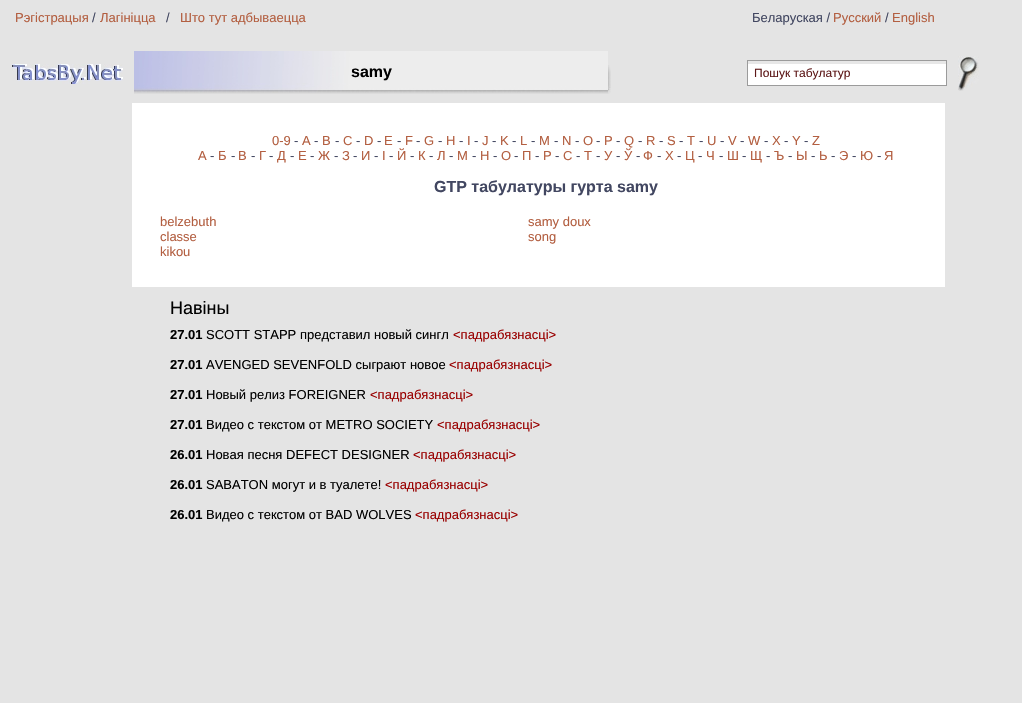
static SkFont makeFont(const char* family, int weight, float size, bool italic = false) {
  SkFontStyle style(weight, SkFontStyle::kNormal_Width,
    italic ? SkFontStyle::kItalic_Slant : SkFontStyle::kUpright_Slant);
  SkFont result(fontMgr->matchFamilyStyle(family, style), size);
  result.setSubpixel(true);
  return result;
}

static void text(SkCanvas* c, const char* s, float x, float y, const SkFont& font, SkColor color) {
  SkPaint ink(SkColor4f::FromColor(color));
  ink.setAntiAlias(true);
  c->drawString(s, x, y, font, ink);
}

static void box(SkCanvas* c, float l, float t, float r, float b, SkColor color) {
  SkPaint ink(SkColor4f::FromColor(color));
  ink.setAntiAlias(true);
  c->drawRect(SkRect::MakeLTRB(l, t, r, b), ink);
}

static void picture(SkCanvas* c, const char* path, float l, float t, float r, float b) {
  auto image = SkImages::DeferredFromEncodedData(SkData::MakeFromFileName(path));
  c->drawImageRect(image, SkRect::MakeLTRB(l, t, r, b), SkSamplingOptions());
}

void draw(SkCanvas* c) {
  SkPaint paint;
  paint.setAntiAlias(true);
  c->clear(0xffe4e4e4);
  SkFont face1 = makeFont("Liberation Sans", 400, 13);
  text(c, "Рэгістрацыя", 15, 22, face1, 0xffb35f41);
  text(c, "/", 92, 22, face1, 0xff424761);
  text(c, "Лагініцца", 100, 22, face1, 0xffb35f41);
  text(c, "/", 166, 22, face1, 0xff424761);
  text(c, "Што тут адбываецца", 180, 22, face1, 0xffb35f41);
  text(c, "Беларуская /", 752, 22, face1, 0xff424761);
  text(c, "Русский", 833, 22, face1, 0xffb35f41);
  text(c, "/", 885, 22, face1, 0xff424761);
  text(c, "English", 892, 22, face1, 0xffb35f41);
  picture(c, "img_01.png", 12, 64, 123, 84);
  box(c, 134, 93, 608, 94, 0xffdcdcdc);
  picture(c, "img_02.png", 134, 51, 608, 93);
  SkFont face2 = makeFont("Liberation Sans", 700, 16);
  text(c, "samy", 351, 77, face2, 0xff000000);
  picture(c, "img_03.png", 608, 65, 611, 94);
  box(c, 748, 64, 946, 85, 0xffffffff);
  box(c, 747, 61, 947, 64, 0xffe7e7e7);
  paint.setStyle(SkPaint::kStroke_Style);
  paint.setStrokeWidth(1);
  paint.setColor(0xff9b9b9b);
  c->drawRect(SkRect::MakeLTRB(747.5f, 60.5f, 946.5f, 85.5f), paint);
  SkFont face3 = makeFont("Liberation Sans", 400, 12);
  text(c, "Пошук табулатур", 754, 77, face3, 0xff5e1919);
  picture(c, "img_04.png", 958, 56, 979, 91);
  box(c, 132, 103, 945, 287, 0xffffffff);
  text(c, "0-9", 272, 145, face1, 0xffb35f41);
  text(c, "-", 294, 145, face1, 0xff424761);
  text(c, "A", 302, 145, face1, 0xffb35f41);
  text(c, "-", 314, 145, face1, 0xff424761);
  text(c, "B", 322, 145, face1, 0xffb35f41);
  text(c, "-", 335, 145, face1, 0xff424761);
  text(c, "C", 343, 145, face1, 0xffb35f41);
  text(c, "-", 356, 145, face1, 0xff424761);
  text(c, "D", 364, 145, face1, 0xffb35f41);
  text(c, "-", 377, 145, face1, 0xff424761);
  text(c, "E", 384, 145, face1, 0xffb35f41);
  text(c, "-", 397, 145, face1, 0xff424761);
  text(c, "F", 405, 145, face1, 0xffb35f41);
  text(c, "-", 416, 145, face1, 0xff424761);
  text(c, "G", 424, 145, face1, 0xffb35f41);
  text(c, "-", 438, 145, face1, 0xff424761);
  text(c, "H", 446, 145, face1, 0xffb35f41);
  text(c, "-", 459, 145, face1, 0xff424761);
  text(c, "I", 467, 145, face1, 0xffb35f41);
  text(c, "-", 474, 145, face1, 0xff424761);
  text(c, "J", 482, 145, face1, 0xffb35f41);
  text(c, "-", 492, 145, face1, 0xff424761);
  text(c, "K", 500, 145, face1, 0xffb35f41);
  text(c, "-", 512, 145, face1, 0xff424761);
  text(c, "L", 520, 145, face1, 0xffb35f41);
  text(c, "-", 531, 145, face1, 0xff424761);
  text(c, "M", 539, 145, face1, 0xffb35f41);
  text(c, "-", 554, 145, face1, 0xff424761);
  text(c, "N", 562, 145, face1, 0xffb35f41);
  text(c, "-", 575, 145, face1, 0xff424761);
  text(c, "O", 583, 145, face1, 0xffb35f41);
  text(c, "-", 596, 145, face1, 0xff424761);
  text(c, "P", 604, 145, face1, 0xffb35f41);
  text(c, "-", 616, 145, face1, 0xff424761);
  text(c, "Q", 624, 145, face1, 0xffb35f41);
  text(c, "-", 638, 145, face1, 0xff424761);
  text(c, "R", 646, 145, face1, 0xffb35f41);
  text(c, "-", 659, 145, face1, 0xff424761);
  text(c, "S", 667, 145, face1, 0xffb35f41);
  text(c, "-", 679, 145, face1, 0xff424761);
  text(c, "T", 687, 145, face1, 0xffb35f41);
  text(c, "-", 699, 145, face1, 0xff424761);
  text(c, "U", 707, 145, face1, 0xffb35f41);
  text(c, "-", 720, 145, face1, 0xff424761);
  text(c, "V", 728, 145, face1, 0xffb35f41);
  text(c, "-", 740, 145, face1, 0xff424761);
  text(c, "W", 748, 145, face1, 0xffb35f41);
  text(c, "-", 764, 145, face1, 0xff424761);
  text(c, "X", 772, 145, face1, 0xffb35f41);
  text(c, "-", 784, 145, face1, 0xff424761);
  text(c, "Y", 792, 145, face1, 0xffb35f41);
  text(c, "-", 804, 145, face1, 0xff424761);
  text(c, "Z", 812, 145, face1, 0xffb35f41);
  text(c, "А", 198, 160, face1, 0xffb35f41);
  text(c, "-", 210, 160, face1, 0xff424761);
  text(c, "Б", 218, 160, face1, 0xffb35f41);
  text(c, "-", 231, 160, face1, 0xff424761);
  text(c, "В", 238, 160, face1, 0xffb35f41);
  text(c, "-", 251, 160, face1, 0xff424761);
  text(c, "Г", 259, 160, face1, 0xffb35f41);
  text(c, "-", 269, 160, face1, 0xff424761);
  text(c, "Д", 277, 160, face1, 0xffb35f41);
  text(c, "-", 290, 160, face1, 0xff424761);
  text(c, "Е", 298, 160, face1, 0xffb35f41);
  text(c, "-", 310, 160, face1, 0xff424761);
  text(c, "Ж", 318, 160, face1, 0xffb35f41);
  text(c, "-", 334, 160, face1, 0xff424761);
  text(c, "З", 342, 160, face1, 0xffb35f41);
  text(c, "-", 353, 160, face1, 0xff424761);
  text(c, "И", 361, 160, face1, 0xffb35f41);
  text(c, "-", 374, 160, face1, 0xff424761);
  text(c, "І", 382, 160, face1, 0xffb35f41);
  text(c, "-", 389, 160, face1, 0xff424761);
  text(c, "Й", 397, 160, face1, 0xffb35f41);
  text(c, "-", 410, 160, face1, 0xff424761);
  text(c, "К", 418, 160, face1, 0xffb35f41);
  text(c, "-", 429, 160, face1, 0xff424761);
  text(c, "Л", 437, 160, face1, 0xffb35f41);
  text(c, "-", 449, 160, face1, 0xff424761);
  text(c, "М", 457, 160, face1, 0xffb35f41);
  text(c, "-", 472, 160, face1, 0xff424761);
  text(c, "Н", 480, 160, face1, 0xffb35f41);
  text(c, "-", 493, 160, face1, 0xff424761);
  text(c, "О", 501, 160, face1, 0xffb35f41);
  text(c, "-", 514, 160, face1, 0xff424761);
  text(c, "П", 522, 160, face1, 0xffb35f41);
  text(c, "-", 535, 160, face1, 0xff424761);
  text(c, "Р", 543, 160, face1, 0xffb35f41);
  text(c, "-", 555, 160, face1, 0xff424761);
  text(c, "С", 563, 160, face1, 0xffb35f41);
  text(c, "-", 576, 160, face1, 0xff424761);
  text(c, "Т", 584, 160, face1, 0xffb35f41);
  text(c, "-", 596, 160, face1, 0xff424761);
  text(c, "У", 604, 160, face1, 0xffb35f41);
  text(c, "-", 616, 160, face1, 0xff424761);
  text(c, "Ў", 624, 160, face1, 0xffb35f41);
  text(c, "-", 636, 160, face1, 0xff424761);
  text(c, "Ф", 643, 160, face1, 0xffb35f41);
  text(c, "-", 657, 160, face1, 0xff424761);
  text(c, "Х", 665, 160, face1, 0xffb35f41);
  text(c, "-", 677, 160, face1, 0xff424761);
  text(c, "Ц", 685, 160, face1, 0xffb35f41);
  text(c, "-", 698, 160, face1, 0xff424761);
  text(c, "Ч", 706, 160, face1, 0xffb35f41);
  text(c, "-", 719, 160, face1, 0xff424761);
  text(c, "Ш", 727, 160, face1, 0xffb35f41);
  text(c, "-", 742, 160, face1, 0xff424761);
  text(c, "Щ", 750, 160, face1, 0xffb35f41);
  text(c, "-", 766, 160, face1, 0xff424761);
  text(c, "Ъ", 774, 160, face1, 0xffb35f41);
  text(c, "-", 788, 160, face1, 0xff424761);
  text(c, "Ы", 796, 160, face1, 0xffb35f41);
  text(c, "-", 811, 160, face1, 0xff424761);
  text(c, "Ь", 819, 160, face1, 0xffb35f41);
  text(c, "-", 831, 160, face1, 0xff424761);
  text(c, "Э", 839, 160, face1, 0xffb35f41);
  text(c, "-", 852, 160, face1, 0xff424761);
  text(c, "Ю", 860, 160, face1, 0xffb35f41);
  text(c, "-", 877, 160, face1, 0xff424761);
  text(c, "Я", 884, 160, face1, 0xffb35f41);
  text(c, "GTP табулатуры гурта samy", 434, 192, face2, 0xff424761);
  text(c, "belzebuth", 160, 226, face1, 0xffb35f41);
  text(c, "classe", 160, 241, face1, 0xffb35f41);
  text(c, "kikou", 160, 256, face1, 0xffb35f41);
  text(c, "samy doux", 528, 226, face1, 0xffb35f41);
  text(c, "song", 528, 241, face1, 0xffb35f41);
  SkFont face4 = makeFont("Liberation Sans", 400, 18);
  text(c, "Навіны", 170, 314, face4, 0xff000000);
  SkFont face5 = makeFont("Liberation Sans", 700, 13);
  text(c, "27.01", 170, 339, face5, 0xff000000);
  text(c, "SCOTT STAPP представил новый сингл", 206, 339, face1, 0xff000000);
  text(c, "<падрабязнасці>", 453, 339, face1, 0xff990000);
  text(c, "27.01", 170, 369, face5, 0xff000000);
  text(c, "AVENGED SEVENFOLD сыграют новое", 206, 369, face1, 0xff000000);
  text(c, "<падрабязнасці>", 449, 369, face1, 0xff990000);
  text(c, "27.01", 170, 399, face5, 0xff000000);
  text(c, "Новый релиз FOREIGNER", 206, 399, face1, 0xff000000);
  text(c, "<падрабязнасці>", 370, 399, face1, 0xff990000);
  text(c, "27.01", 170, 429, face5, 0xff000000);
  text(c, "Видео с текстом от METRO SOCIETY", 206, 429, face1, 0xff000000);
  text(c, "<падрабязнасці>", 437, 429, face1, 0xff990000);
  text(c, "26.01", 170, 459, face5, 0xff000000);
  text(c, "Новая песня DEFECT DESIGNER", 206, 459, face1, 0xff000000);
  text(c, "<падрабязнасці>", 413, 459, face1, 0xff990000);
  text(c, "26.01", 170, 489, face5, 0xff000000);
  text(c, "SABATON могут и в туалете!", 206, 489, face1, 0xff000000);
  text(c, "<падрабязнасці>", 385, 489, face1, 0xff990000);
  text(c, "26.01", 170, 519, face5, 0xff000000);
  text(c, "Видео с текстом от BAD WOLVES", 206, 519, face1, 0xff000000);
  text(c, "<падрабязнасці>", 415, 519, face1, 0xff990000);
}
